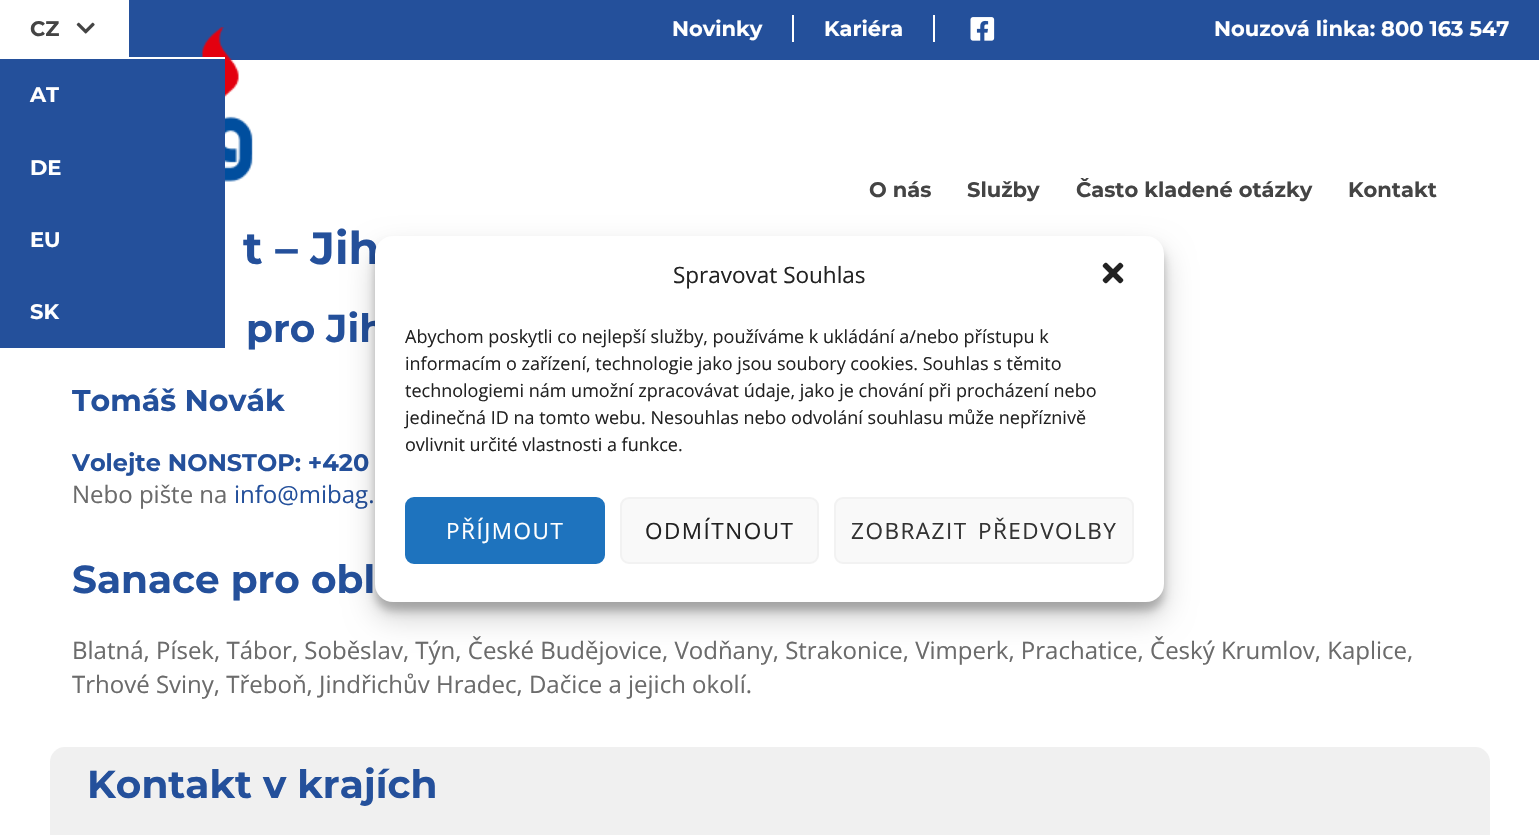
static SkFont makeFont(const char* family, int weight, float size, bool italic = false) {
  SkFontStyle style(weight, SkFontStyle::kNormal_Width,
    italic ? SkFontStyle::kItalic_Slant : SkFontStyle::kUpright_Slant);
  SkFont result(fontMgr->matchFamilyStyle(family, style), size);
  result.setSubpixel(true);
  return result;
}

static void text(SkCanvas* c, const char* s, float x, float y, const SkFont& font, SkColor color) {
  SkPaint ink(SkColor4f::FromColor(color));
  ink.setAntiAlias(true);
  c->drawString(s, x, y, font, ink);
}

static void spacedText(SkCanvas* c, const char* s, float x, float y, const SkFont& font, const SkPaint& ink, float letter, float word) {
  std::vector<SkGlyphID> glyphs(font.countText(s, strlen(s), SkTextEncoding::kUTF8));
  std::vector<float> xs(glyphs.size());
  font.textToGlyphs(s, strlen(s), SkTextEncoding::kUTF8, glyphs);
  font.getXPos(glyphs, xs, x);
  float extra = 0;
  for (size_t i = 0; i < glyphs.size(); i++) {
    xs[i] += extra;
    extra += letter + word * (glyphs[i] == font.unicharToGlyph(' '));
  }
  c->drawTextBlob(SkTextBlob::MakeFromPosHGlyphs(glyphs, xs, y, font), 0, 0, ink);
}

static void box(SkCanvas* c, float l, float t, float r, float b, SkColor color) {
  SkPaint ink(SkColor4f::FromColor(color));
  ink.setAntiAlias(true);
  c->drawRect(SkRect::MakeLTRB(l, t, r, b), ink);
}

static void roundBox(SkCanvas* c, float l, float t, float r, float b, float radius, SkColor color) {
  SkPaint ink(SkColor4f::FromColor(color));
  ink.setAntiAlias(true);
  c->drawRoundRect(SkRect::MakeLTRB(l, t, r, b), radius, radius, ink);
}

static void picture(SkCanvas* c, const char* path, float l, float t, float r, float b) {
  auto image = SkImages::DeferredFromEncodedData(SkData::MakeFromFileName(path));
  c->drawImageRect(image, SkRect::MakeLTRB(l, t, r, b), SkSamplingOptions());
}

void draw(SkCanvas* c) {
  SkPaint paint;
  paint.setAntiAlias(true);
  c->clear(0xffffffff);
  box(c, 129, 0, 1539, 60, 0xff24509b);
  SkFont face1 = makeFont("Montserrat", 700, 21);
  text(c, "CZ", 30, 36, face1, 0xff444444);
  picture(c, "img_01.png", 76, 22, 95, 34);
  picture(c, "img_03.png", 201, 27, 253, 182);
  box(c, 0, 59, 225, 348, 0xff24509b);
  box(c, 129, 57, 225, 59, 0xffffffff);
  text(c, "AT", 30, 102, face1, 0xffffffff);
  text(c, "DE", 30, 175, face1, 0xffffffff);
  text(c, "EU", 30, 247, face1, 0xffffffff);
  text(c, "SK", 30, 319, face1, 0xffffffff);
  text(c, "Novinky", 672, 36, face1, 0xffffffff);
  box(c, 792, 15, 794, 42, 0xffffffff);
  text(c, "Kariéra", 824, 36, face1, 0xffffffff);
  box(c, 933, 15, 935, 42, 0xffffffff);
  picture(c, "img_02.png", 970, 17, 995, 41);
  text(c, "Nouzová linka: 800 163 547", 1214, 36, face1, 0xffffffff);
  text(c, "O nás", 869, 197, face1, 0xff444444);
  text(c, "Služby", 967, 197, face1, 0xff444444);
  text(c, "Často kladené otázky", 1076, 197, face1, 0xff444444);
  text(c, "Kontakt", 1348, 197, face1, 0xff444444);
  SkFont face2 = makeFont("Montserrat", 700, 45);
  text(c, "t – Jih", 243, 264, face2, 0xff24509b);
  SkFont face3 = makeFont("Montserrat", 700, 39);
  text(c, "pro Jih", 246, 342, face3, 0xff24509b);
  SkFont face4 = makeFont("Montserrat", 700, 30);
  text(c, "Tomáš Novák", 72, 411, face4, 0xff24509b);
  SkFont face5 = makeFont("Montserrat", 700, 24);
  text(c, "Volejte NONSTOP: +420", 72, 471, face5, 0xff24509b);
  SkFont face6 = makeFont("Open Sans", 400, 24);
  text(c, "Nebo pište na", 72, 503, face6, 0xff6b6b6b);
  text(c, "info@mibag.", 234, 503, face6, 0xff24509b);
  text(c, "Sanace pro obl", 72, 593, face3, 0xff24509b);
  text(c, "Blatná, Písek, Tábor, Soběslav, Týn, České Budějovice, Vodňany, Strakonice, Vimperk, Prachatice, Český Krumlov, Kaplice,", 72, 659, face6, 0xff6b6b6b);
  text(c, "Trhové Sviny, Třeboň, Jindřichův Hradec, Dačice a jejich okolí.", 72, 693, face6, 0xff6b6b6b);
  roundBox(c, 50, 747, 1490, 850, 15, 0xfff0f0f0);
  text(c, "Kontakt v krajích", 87, 798, face3, 0xff24509b);
  paint.setColor(0x3b000000);
  paint.setMaskFilter(SkMaskFilter::MakeBlur(kNormal_SkBlurStyle, 4.5f));
  c->drawRoundRect(SkRect::MakeLTRB(375, 245, 1164, 611), 18, 18, paint);
  paint.setMaskFilter(nullptr);
  paint.setColor(0x30000000);
  paint.setMaskFilter(SkMaskFilter::MakeBlur(kNormal_SkBlurStyle, 15));
  c->drawRoundRect(SkRect::MakeLTRB(375, 251, 1164, 617), 18, 18, paint);
  paint.setMaskFilter(nullptr);
  roundBox(c, 375, 236, 1164, 602, 18, 0xffffffff);
  SkFont face7 = makeFont("Open Sans", 400, 22.5f);
  text(c, "Spravovat Souhlas", 673, 283, face7, 0xff222222);
  picture(c, "img_04.png", 1102, 262, 1124, 284);
  SkFont face8 = makeFont("Open Sans", 400, 18);
  text(c, "Abychom poskytli co nejlepší služby, používáme k ukládání a/nebo přístupu k", 405, 343, face8, 0xff222222);
  text(c, "informacím o zařízení, technologie jako jsou soubory cookies. Souhlas s těmito", 405, 370, face8, 0xff222222);
  text(c, "technologiemi nám umožní zpracovávat údaje, jako je chování při procházení nebo", 405, 397, face8, 0xff222222);
  text(c, "jedinečná ID na tomto webu. Nesouhlas nebo odvolání souhlasu může nepříznivě", 405, 424, face8, 0xff222222);
  text(c, "ovlivnit určité vlastnosti a funkce.", 405, 451, face8, 0xff222222);
  paint.setColor(0xff1e73be);
  c->drawRoundRect(SkRect::MakeLTRB(406, 498, 604, 563), 8, 8, paint);
  paint.setStyle(SkPaint::kStroke_Style);
  paint.setStrokeWidth(2);
  c->drawRoundRect(SkRect::MakeLTRB(406, 498, 604, 563), 8, 8, paint);
  paint.setStyle(SkPaint::kFill_Style);
  paint.setColor(0xffffffff);
  spacedText(c, "PŘÍJMOUT", 446, 539, face7, paint, 1.5f, 0);
  paint.setColor(0xfff9f9f9);
  c->drawRoundRect(SkRect::MakeLTRB(621, 498, 818, 563), 8, 8, paint);
  paint.setStyle(SkPaint::kStroke_Style);
  paint.setColor(0xfff2f2f2);
  c->drawRoundRect(SkRect::MakeLTRB(621, 498, 818, 563), 8, 8, paint);
  paint.setStyle(SkPaint::kFill_Style);
  paint.setColor(0xff222222);
  spacedText(c, "ODMÍTNOUT", 645, 539, face7, paint, 1.5f, 0);
  paint.setColor(0xfff9f9f9);
  c->drawRoundRect(SkRect::MakeLTRB(835, 498, 1133, 563), 8, 8, paint);
  paint.setStyle(SkPaint::kStroke_Style);
  paint.setColor(0xfff2f2f2);
  c->drawRoundRect(SkRect::MakeLTRB(835, 498, 1133, 563), 8, 8, paint);
  paint.setStyle(SkPaint::kFill_Style);
  paint.setColor(0xff333333);
  spacedText(c, "ZOBRAZIT PŘEDVOLBY", 851, 539, face7, paint, 1.5f, 3);
}
